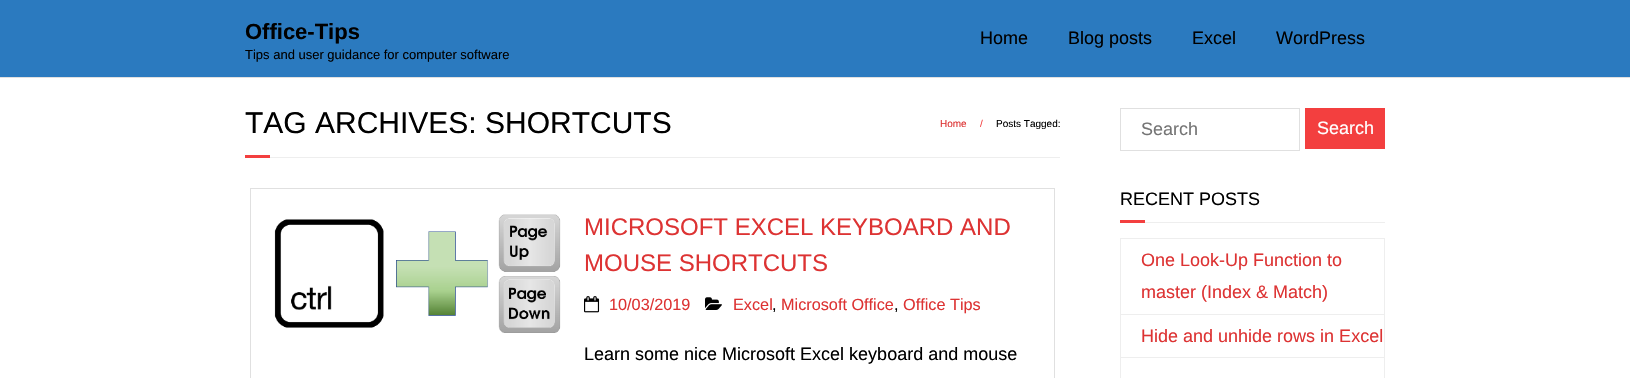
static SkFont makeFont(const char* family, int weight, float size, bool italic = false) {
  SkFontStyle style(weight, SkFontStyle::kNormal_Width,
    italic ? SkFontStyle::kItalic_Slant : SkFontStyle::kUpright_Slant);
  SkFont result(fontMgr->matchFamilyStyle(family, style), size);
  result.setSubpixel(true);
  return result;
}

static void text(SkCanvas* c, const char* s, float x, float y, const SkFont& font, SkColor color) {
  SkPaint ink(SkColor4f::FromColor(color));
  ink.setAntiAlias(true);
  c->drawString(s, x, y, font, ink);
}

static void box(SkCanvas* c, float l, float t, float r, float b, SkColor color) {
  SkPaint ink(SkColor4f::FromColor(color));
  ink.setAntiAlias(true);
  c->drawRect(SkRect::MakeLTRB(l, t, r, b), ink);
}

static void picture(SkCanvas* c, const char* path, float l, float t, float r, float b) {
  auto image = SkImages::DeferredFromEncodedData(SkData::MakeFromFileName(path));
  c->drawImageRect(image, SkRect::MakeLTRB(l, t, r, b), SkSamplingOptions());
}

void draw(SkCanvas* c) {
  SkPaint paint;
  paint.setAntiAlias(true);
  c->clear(0xffffffff);
  box(c, 0, 0, 1630, 77, 0xff2b7abf);
  box(c, 0, 77, 1630, 78, 0xffe0e0e0);
  SkFont face1 = makeFont("Liberation Sans", 700, 22);
  text(c, "Office-Tips", 245, 39, face1, 0xff000000);
  SkFont face2 = makeFont("Liberation Sans", 400, 13);
  text(c, "Tips and user guidance for computer software", 245, 59, face2, 0xff000000);
  SkFont face3 = makeFont("Liberation Sans", 400, 18);
  text(c, "Home", 980, 44, face3, 0xff000000);
  text(c, "Blog posts", 1068, 44, face3, 0xff000000);
  text(c, "Excel", 1192, 44, face3, 0xff000000);
  text(c, "WordPress", 1276, 44, face3, 0xff000000);
  SkFont face4 = makeFont("Liberation Sans", 400, 30);
  text(c, "TAG ARCHIVES: SHORTCUTS", 245, 133, face4, 0xff000000);
  SkFont face5 = makeFont("Liberation Sans", 400, 10);
  text(c, "Home", 940, 127, face5, 0xffdd3333);
  text(c, "/", 980, 127, face5, 0xfff33f3f);
  text(c, "Posts Tagged:", 996, 127, face5, 0xff000000);
  box(c, 245, 155, 270, 158, 0xfff33f3f);
  box(c, 270, 157, 1060, 158, 0xffeeeeee);
  paint.setStyle(SkPaint::kStroke_Style);
  paint.setStrokeWidth(1);
  paint.setColor(0xffe0e0e0);
  c->drawRect(SkRect::MakeLTRB(250.5f, 188.5f, 1054.5f, 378.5f), paint);
  picture(c, "img_01.png", 274, 214, 561, 333);
  SkFont face6 = makeFont("Liberation Sans", 400, 24);
  text(c, "MICROSOFT EXCEL KEYBOARD AND", 584, 235, face6, 0xffdd3333);
  text(c, "MOUSE SHORTCUTS", 584, 271, face6, 0xffdd3333);
  picture(c, "img_02.png", 584, 296, 600, 313);
  SkFont face7 = makeFont("Liberation Sans", 400, 16.25f);
  text(c, "10/03/2019", 609, 310, face7, 0xffdd3333);
  picture(c, "img_03.png", 705, 297, 722, 310);
  text(c, "Excel", 733, 310, face7, 0xffdd3333);
  text(c, ",", 772, 310, face7, 0xff000000);
  text(c, "Microsoft Office", 781, 310, face7, 0xffdd3333);
  text(c, ",", 894, 310, face7, 0xff000000);
  text(c, "Office Tips", 903, 310, face7, 0xffdd3333);
  text(c, "Learn some nice Microsoft Excel keyboard and mouse", 584, 360, face3, 0xff000000);
  c->drawRect(SkRect::MakeLTRB(1120.5f, 108.5f, 1299.5f, 150.5f), paint);
  text(c, "Search", 1141, 135, face3, 0xff757575);
  box(c, 1305, 108, 1385, 149, 0xfff33f3f);
  text(c, "Search", 1317, 134, face3, 0xffffffff);
  text(c, "RECENT POSTS", 1120, 205, face3, 0xff000000);
  box(c, 1120, 220, 1145, 223, 0xfff33f3f);
  box(c, 1145, 222, 1385, 223, 0xffeeeeee);
  box(c, 1120, 238, 1385, 239, 0xffeeeeee);
  box(c, 1384, 238, 1385, 378, 0xffeeeeee);
  box(c, 1120, 238, 1121, 378, 0xffeeeeee);
  box(c, 1121, 314, 1384, 315, 0xffeeeeee);
  text(c, "One Look-Up Function to", 1141, 266, face3, 0xffdd3333);
  text(c, "master (Index & Match)", 1141, 298, face3, 0xffdd3333);
  box(c, 1121, 357, 1384, 358, 0xffeeeeee);
  text(c, "Hide and unhide rows in Excel", 1141, 342, face3, 0xffdd3333);
}
